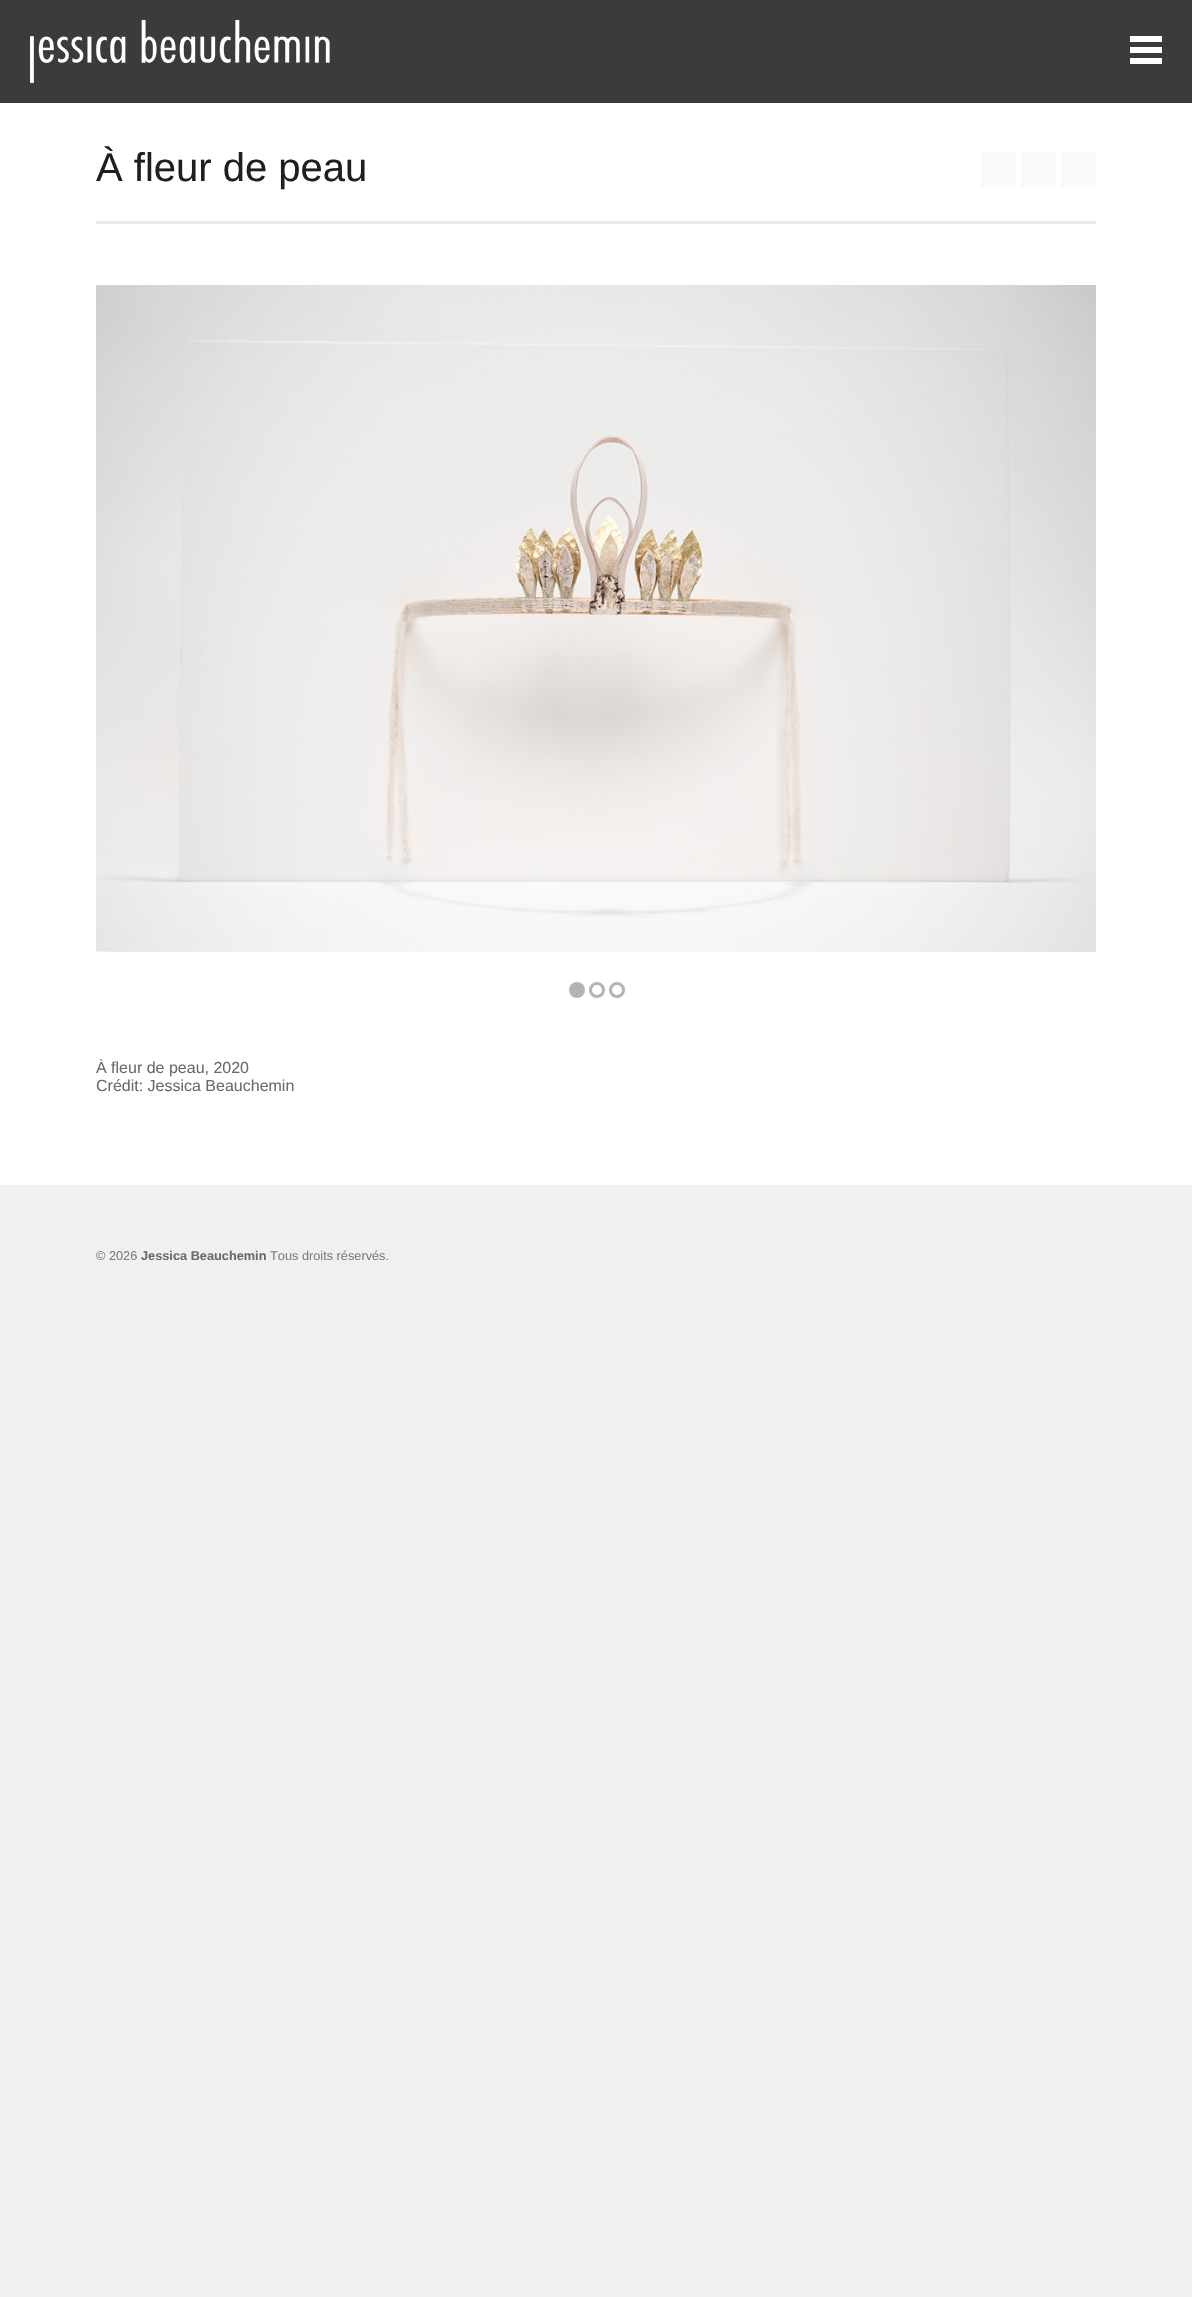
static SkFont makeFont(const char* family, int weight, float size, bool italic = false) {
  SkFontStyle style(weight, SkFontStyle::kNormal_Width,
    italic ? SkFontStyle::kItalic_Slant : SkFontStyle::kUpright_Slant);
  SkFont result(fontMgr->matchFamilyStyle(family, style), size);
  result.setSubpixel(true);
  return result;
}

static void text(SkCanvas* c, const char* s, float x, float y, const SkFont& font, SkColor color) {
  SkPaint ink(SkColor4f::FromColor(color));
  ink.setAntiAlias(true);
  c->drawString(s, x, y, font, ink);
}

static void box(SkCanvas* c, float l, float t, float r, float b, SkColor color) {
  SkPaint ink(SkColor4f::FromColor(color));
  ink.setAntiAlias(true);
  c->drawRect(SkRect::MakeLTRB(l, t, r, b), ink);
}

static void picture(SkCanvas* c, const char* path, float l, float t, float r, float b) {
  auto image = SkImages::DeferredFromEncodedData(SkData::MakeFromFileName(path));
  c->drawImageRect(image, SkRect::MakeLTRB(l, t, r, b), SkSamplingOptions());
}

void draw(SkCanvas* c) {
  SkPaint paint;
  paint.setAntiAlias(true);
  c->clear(0xfff1f0f0);
  box(c, 0, 103, 1192, 1185, 0xffffffff);
  box(c, 0, 0, 1192, 103, 0xff3b3b3b);
  picture(c, "img_01.png", 30, 20, 330, 83);
  picture(c, "img_02.png", 1130, 36, 1162, 64);
  box(c, 96, 221, 1096, 224, 0xffe9e9e9);
  SkFont face1 = makeFont("Liberation Sans", 400, 40);
  text(c, "À fleur de peau", 96, 181, face1, 0xff1f1f1f);
  box(c, 981, 152, 1016, 187, 0xfff9f9f9);
  box(c, 1021, 152, 1056, 187, 0xfff9f9f9);
  box(c, 1061, 152, 1096, 187, 0xfff9f9f9);
  picture(c, "img_03.png", 96, 285, 1096, 952);
  paint.setColor(0xffb3b3b3);
  c->drawCircle(577, 990, 8, paint);
  paint.setStyle(SkPaint::kStroke_Style);
  paint.setStrokeWidth(3);
  c->drawCircle(597, 990, 6.5f, paint);
  c->drawCircle(617, 990, 6.5f, paint);
  SkFont face2 = makeFont("Liberation Sans", 400, 16);
  text(c, "À fleur de peau, 2020", 96, 1073, face2, 0xff6a6a6a);
  text(c, "Crédit: Jessica Beauchemin", 96, 1091, face2, 0xff6a6a6a);
  SkFont face3 = makeFont("Liberation Sans", 400, 12.75f);
  text(c, "© 2026", 96, 1260, face3, 0xff7e7d7d);
  SkFont face4 = makeFont("Liberation Sans", 700, 12.75f);
  text(c, "Jessica Beauchemin", 141, 1260, face4, 0xff6a6a6a);
  text(c, "Tous droits réservés.", 270, 1260, face3, 0xff7e7d7d);
}
